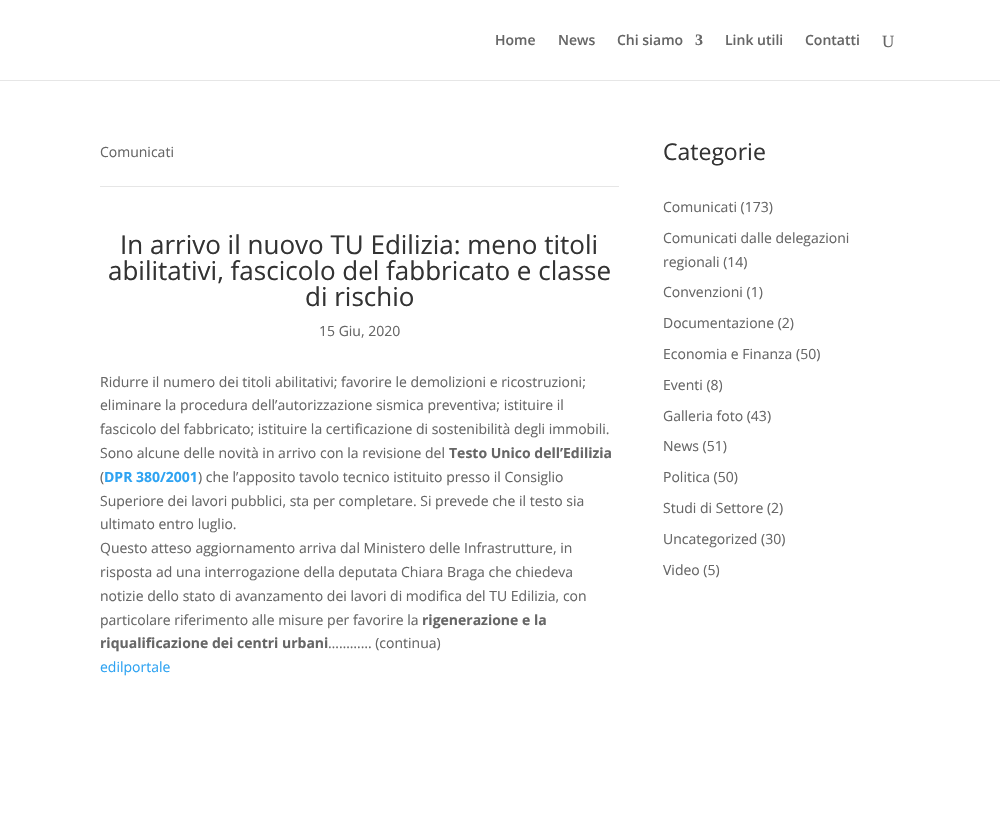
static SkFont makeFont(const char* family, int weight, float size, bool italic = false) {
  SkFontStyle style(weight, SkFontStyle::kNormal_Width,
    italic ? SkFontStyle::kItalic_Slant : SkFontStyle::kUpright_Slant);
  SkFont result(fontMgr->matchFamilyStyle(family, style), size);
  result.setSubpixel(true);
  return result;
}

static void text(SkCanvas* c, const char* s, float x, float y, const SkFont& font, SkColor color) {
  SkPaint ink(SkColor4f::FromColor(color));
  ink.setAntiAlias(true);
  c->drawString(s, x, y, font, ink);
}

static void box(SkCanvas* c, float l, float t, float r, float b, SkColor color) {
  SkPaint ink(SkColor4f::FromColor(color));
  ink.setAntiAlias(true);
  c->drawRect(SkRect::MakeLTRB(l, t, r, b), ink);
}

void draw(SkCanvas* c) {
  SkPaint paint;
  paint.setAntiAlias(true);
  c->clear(0xffffffff);
  box(c, 0, 80, 1000, 81, 0xffe6e6e6);
  SkFont face1 = makeFont("Open Sans", 600, 14);
  text(c, "Home", 495, 45, face1, 0xff666666);
  text(c, "News", 558, 45, face1, 0xff666666);
  text(c, "Chi siamo", 617, 45, face1, 0xff666666);
  SkFont face2 = makeFont("Liberation Serif", 700, 16);
  text(c, "3", 695, 45, face2, 0xff666666);
  text(c, "Link utili", 725, 45, face1, 0xff666666);
  text(c, "Contatti", 805, 45, face1, 0xff666666);
  SkFont face3 = makeFont("Liberation Serif", 400, 17);
  text(c, "U", 882, 47, face3, 0xff666666);
  SkFont face4 = makeFont("Open Sans", 400, 14);
  text(c, "Comunicati", 100, 157, face4, 0xff666666);
  box(c, 100, 186, 619, 187, 0xffe6e6e6);
  SkFont face5 = makeFont("Open Sans", 400, 26);
  text(c, "In arrivo il nuovo TU Edilizia: meno titoli", 120, 254, face5, 0xff333333);
  text(c, "abilitativi, fascicolo del fabbricato e classe", 108, 280, face5, 0xff333333);
  text(c, "di rischio", 305, 306, face5, 0xff333333);
  text(c, "15 Giu, 2020", 319, 336, face4, 0xff666666);
  text(c, "Ridurre il numero dei titoli abilitativi; favorire le demolizioni e ricostruzioni;", 100, 387, face4, 0xff666666);
  text(c, "eliminare la procedura dell’autorizzazione sismica preventiva; istituire il", 100, 410, face4, 0xff666666);
  text(c, "fascicolo del fabbricato; istituire la certificazione di sostenibilità degli immobili.", 100, 434, face4, 0xff666666);
  text(c, "Sono alcune delle novità in arrivo con la revisione del", 100, 458, face4, 0xff666666);
  SkFont face6 = makeFont("Open Sans", 700, 14);
  text(c, "Testo Unico dell’Edilizia", 449, 458, face6, 0xff666666);
  text(c, "(", 100, 482, face4, 0xff666666);
  text(c, "DPR 380/2001", 104, 482, face6, 0xff2ea3f2);
  text(c, ") che l’apposito tavolo tecnico istituito presso il Consiglio", 198, 482, face4, 0xff666666);
  text(c, "Superiore dei lavori pubblici, sta per completare. Si prevede che il testo sia", 100, 506, face4, 0xff666666);
  text(c, "ultimato entro luglio.", 100, 529, face4, 0xff666666);
  text(c, "Questo atteso aggiornamento arriva dal Ministero delle Infrastrutture, in", 100, 553, face4, 0xff666666);
  text(c, "risposta ad una interrogazione della deputata Chiara Braga che chiedeva", 100, 577, face4, 0xff666666);
  text(c, "notizie dello stato di avanzamento dei lavori di modifica del TU Edilizia, con", 100, 601, face4, 0xff666666);
  text(c, "particolare riferimento alle misure per favorire la", 100, 625, face4, 0xff666666);
  text(c, "rigenerazione e la", 422, 625, face6, 0xff666666);
  text(c, "riqualificazione dei centri urbani", 100, 648, face6, 0xff666666);
  text(c, "………… (continua)", 328, 648, face4, 0xff666666);
  text(c, "edilportale", 100, 672, face4, 0xff2ea3f2);
  SkFont face7 = makeFont("Open Sans", 400, 23);
  text(c, "Categorie", 663, 160, face7, 0xff333333);
  text(c, "Comunicati (173)", 663, 212, face4, 0xff666666);
  text(c, "Comunicati dalle delegazioni", 663, 243, face4, 0xff666666);
  text(c, "regionali (14)", 663, 267, face4, 0xff666666);
  text(c, "Convenzioni (1)", 663, 297, face4, 0xff666666);
  text(c, "Documentazione (2)", 663, 328, face4, 0xff666666);
  text(c, "Economia e Finanza (50)", 663, 359, face4, 0xff666666);
  text(c, "Eventi (8)", 663, 390, face4, 0xff666666);
  text(c, "Galleria foto (43)", 663, 421, face4, 0xff666666);
  text(c, "News (51)", 663, 451, face4, 0xff666666);
  text(c, "Politica (50)", 663, 482, face4, 0xff666666);
  text(c, "Studi di Settore (2)", 663, 513, face4, 0xff666666);
  text(c, "Uncategorized (30)", 663, 544, face4, 0xff666666);
  text(c, "Video (5)", 663, 575, face4, 0xff666666);
}
